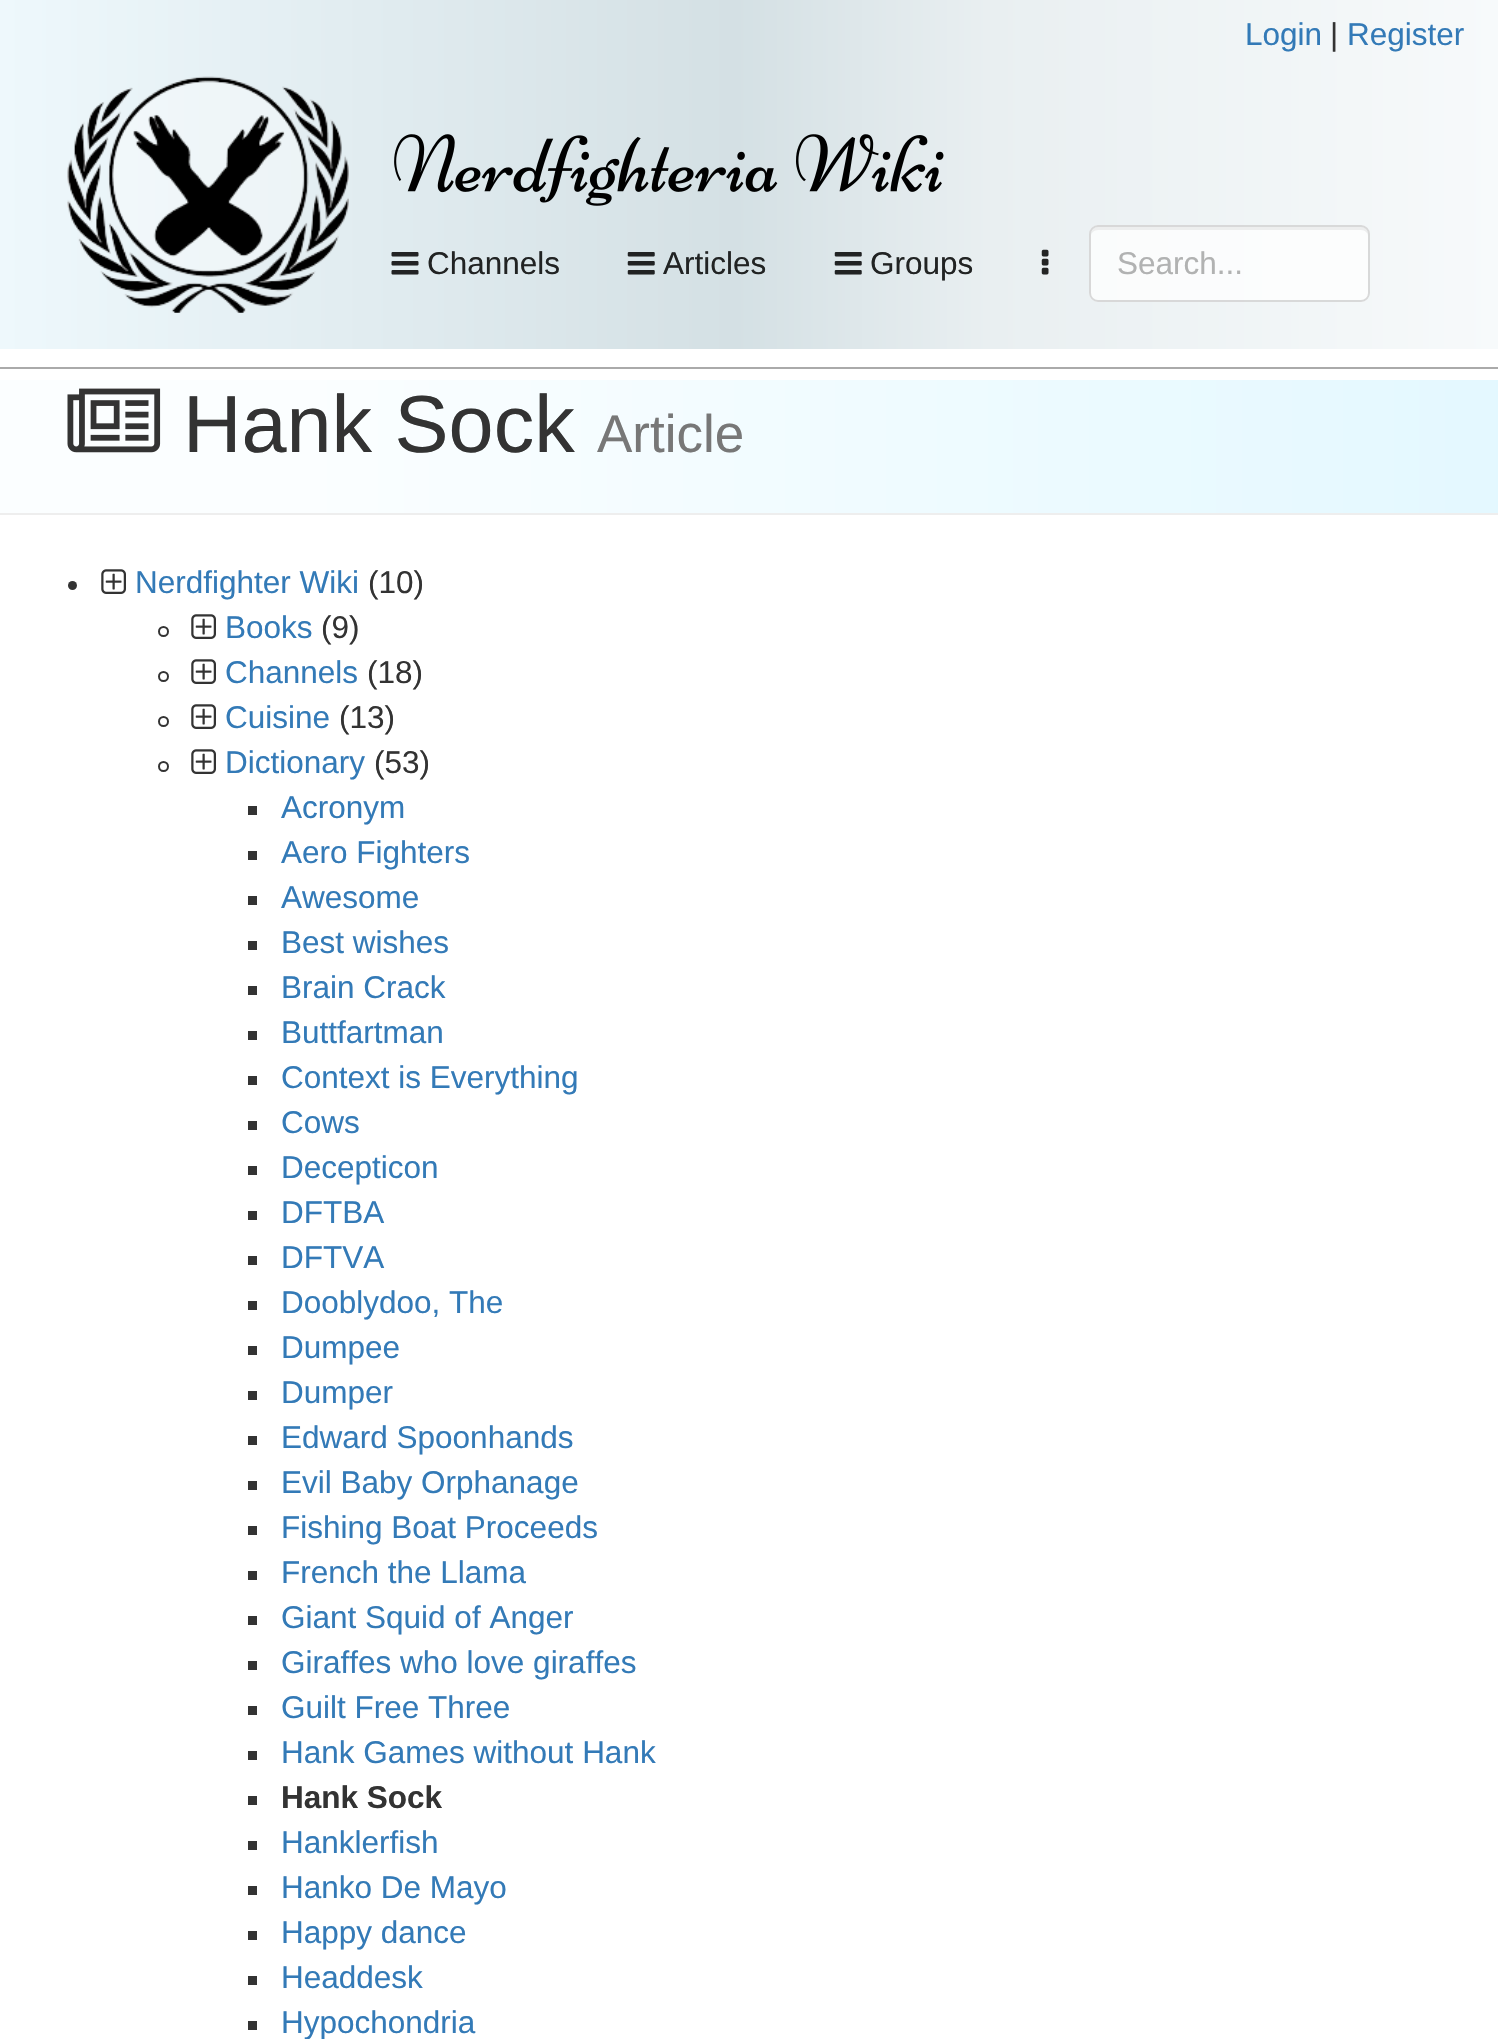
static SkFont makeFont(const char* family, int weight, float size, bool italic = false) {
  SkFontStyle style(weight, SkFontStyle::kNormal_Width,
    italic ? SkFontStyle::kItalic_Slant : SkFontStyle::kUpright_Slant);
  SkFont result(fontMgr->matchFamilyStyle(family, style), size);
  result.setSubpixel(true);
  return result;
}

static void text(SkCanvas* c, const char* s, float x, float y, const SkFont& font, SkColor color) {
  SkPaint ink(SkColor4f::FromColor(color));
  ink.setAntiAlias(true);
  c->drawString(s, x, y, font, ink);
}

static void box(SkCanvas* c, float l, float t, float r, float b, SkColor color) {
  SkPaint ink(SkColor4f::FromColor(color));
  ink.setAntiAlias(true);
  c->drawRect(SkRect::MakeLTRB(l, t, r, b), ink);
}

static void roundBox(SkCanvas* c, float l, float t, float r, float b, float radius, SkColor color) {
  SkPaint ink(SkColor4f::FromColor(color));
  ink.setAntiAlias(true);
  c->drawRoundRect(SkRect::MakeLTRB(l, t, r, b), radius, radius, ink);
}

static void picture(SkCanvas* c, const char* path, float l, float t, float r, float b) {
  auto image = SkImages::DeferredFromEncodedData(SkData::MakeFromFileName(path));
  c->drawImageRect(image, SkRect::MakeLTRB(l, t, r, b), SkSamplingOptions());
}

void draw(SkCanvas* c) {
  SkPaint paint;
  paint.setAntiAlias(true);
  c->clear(0xffffffff);
  {
    const SkColor colors[] = {0xffeef8fc, 0xffd4e0e4, 0xffe9eff1, 0xfff7fafb};
    const float stops[] = {0, 0.49f, 0.66f, 1};
    const SkPoint ends[] = {{0, 174}, {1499, 174}};
    paint.setShader(SkGradientShader::MakeLinear(ends, colors, stops, 4, SkTileMode::kClamp));
    paint.setAlpha(255);
  }
  c->drawRect(SkRect::MakeLTRB(0, 0, 1498, 349), paint);
  SkFont face1 = makeFont("Liberation Sans", 400, 31.5f);
  text(c, "Login", 1245, 45, face1, 0xff337ab7);
  text(c, "|", 1330, 45, face1, 0xff333333);
  text(c, "Register", 1347, 45, face1, 0xff337ab7);
  picture(c, "img_01.png", 67, 76, 349, 313);
  picture(c, "img_02.png", 394, 134, 944, 206);
  picture(c, "img_03.png", 391, 252, 419, 275);
  text(c, "Channels", 427, 274, face1, 0xff212323);
  picture(c, "img_04.png", 627, 252, 655, 275);
  text(c, "Articles", 663, 274, face1, 0xff212323);
  picture(c, "img_05.png", 834, 252, 862, 275);
  text(c, "Groups", 870, 274, face1, 0xff212323);
  picture(c, "img_06.png", 1041, 249, 1049, 275);
  roundBox(c, 1089, 225, 1370, 302, 9, 0xbfffffff);
  paint.setShader(nullptr);
  paint.setColor(0xffedeeee);
  c->drawPath(SkPathBuilder().moveTo(1098, 230).lineTo(1361, 230).cubicTo(1365, 230, 1368, 233, 1368, 236).cubicTo(1368, 232, 1367, 228, 1362, 227).lineTo(1098, 227).cubicTo(1093, 227, 1091, 232, 1091, 236).cubicTo(1091, 233, 1094, 230, 1098, 230).close().detach(), paint);
  paint.setStyle(SkPaint::kStroke_Style);
  paint.setStrokeWidth(2);
  paint.setColor(0xbfcccccc);
  c->drawRoundRect(SkRect::MakeLTRB(1090, 226, 1369, 301), 8, 8, paint);
  text(c, "Search...", 1117, 274, face1, 0xffb1b2b2);
  box(c, 0, 367, 1498, 369, 0xffaaaaaa);
  paint.setStyle(SkPaint::kFill_Style);
  {
    const SkColor colors[] = {0xfffbfeff, 0xffe3f8ff};
    const float stops[] = {0.21f, 1};
    const SkPoint ends[] = {{-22, 447}, {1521, 447}};
    paint.setShader(SkGradientShader::MakeLinear(ends, colors, stops, 2, SkTileMode::kClamp));
    paint.setAlpha(255);
  }
  c->drawRect(SkRect::MakeLTRB(0, 380, 1498, 513), paint);
  box(c, 0, 513, 1498, 515, 0xffeeeeee);
  picture(c, "img_07.png", 67, 388, 161, 453);
  SkFont face2 = makeFont("Liberation Sans", 400, 81);
  text(c, "Hank Sock", 183, 452, face2, 0xff333333);
  SkFont face3 = makeFont("Liberation Sans", 400, 53);
  text(c, "Article", 597, 452, face3, 0xff777777);
  paint.setShader(nullptr);
  paint.setColor(0xff333333);
  c->drawCircle(72.5f, 585.5f, 4.5f, paint);
  picture(c, "img_08.png", 101, 569, 126, 594);
  text(c, "Nerdfighter Wiki", 135, 593, face1, 0xff337ab7);
  text(c, "(10)", 368, 593, face1, 0xff333333);
  paint.setStyle(SkPaint::kStroke_Style);
  c->drawCircle(163.5f, 631.5f, 4.5f, paint);
  picture(c, "img_08.png", 191, 614, 216, 639);
  text(c, "Books", 225, 638, face1, 0xff337ab7);
  text(c, "(9)", 321, 638, face1, 0xff333333);
  c->drawCircle(163.5f, 676.5f, 4.5f, paint);
  picture(c, "img_08.png", 191, 659, 216, 684);
  text(c, "Channels", 225, 683, face1, 0xff337ab7);
  text(c, "(18)", 367, 683, face1, 0xff333333);
  c->drawCircle(163.5f, 721.5f, 4.5f, paint);
  picture(c, "img_08.png", 191, 704, 216, 729);
  text(c, "Cuisine", 225, 728, face1, 0xff337ab7);
  text(c, "(13)", 339, 728, face1, 0xff333333);
  c->drawCircle(163.5f, 766.5f, 4.5f, paint);
  picture(c, "img_08.png", 191, 749, 216, 774);
  text(c, "Dictionary", 225, 773, face1, 0xff337ab7);
  text(c, "(53)", 374, 773, face1, 0xff333333);
  box(c, 248, 806, 257, 815, 0xff333333);
  text(c, "Acronym", 281, 818, face1, 0xff337ab7);
  box(c, 248, 851, 257, 860, 0xff333333);
  text(c, "Aero Fighters", 281, 863, face1, 0xff337ab7);
  box(c, 248, 896, 257, 905, 0xff333333);
  text(c, "Awesome", 281, 908, face1, 0xff337ab7);
  box(c, 248, 941, 257, 950, 0xff333333);
  text(c, "Best wishes", 281, 953, face1, 0xff337ab7);
  box(c, 248, 986, 257, 995, 0xff333333);
  text(c, "Brain Crack", 281, 998, face1, 0xff337ab7);
  box(c, 248, 1031, 257, 1040, 0xff333333);
  text(c, "Buttfartman", 281, 1043, face1, 0xff337ab7);
  box(c, 248, 1076, 257, 1085, 0xff333333);
  text(c, "Context is Everything", 281, 1088, face1, 0xff337ab7);
  box(c, 248, 1121, 257, 1130, 0xff333333);
  text(c, "Cows", 281, 1133, face1, 0xff337ab7);
  box(c, 248, 1166, 257, 1175, 0xff333333);
  text(c, "Decepticon", 281, 1178, face1, 0xff337ab7);
  box(c, 248, 1211, 257, 1220, 0xff333333);
  text(c, "DFTBA", 281, 1223, face1, 0xff337ab7);
  box(c, 248, 1256, 257, 1265, 0xff333333);
  text(c, "DFTVA", 281, 1268, face1, 0xff337ab7);
  box(c, 248, 1301, 257, 1310, 0xff333333);
  text(c, "Dooblydoo, The", 281, 1313, face1, 0xff337ab7);
  box(c, 248, 1346, 257, 1355, 0xff333333);
  text(c, "Dumpee", 281, 1358, face1, 0xff337ab7);
  box(c, 248, 1391, 257, 1400, 0xff333333);
  text(c, "Dumper", 281, 1403, face1, 0xff337ab7);
  box(c, 248, 1436, 257, 1445, 0xff333333);
  text(c, "Edward Spoonhands", 281, 1448, face1, 0xff337ab7);
  box(c, 248, 1481, 257, 1490, 0xff333333);
  text(c, "Evil Baby Orphanage", 281, 1493, face1, 0xff337ab7);
  box(c, 248, 1526, 257, 1535, 0xff333333);
  text(c, "Fishing Boat Proceeds", 281, 1538, face1, 0xff337ab7);
  box(c, 248, 1571, 257, 1580, 0xff333333);
  text(c, "French the Llama", 281, 1583, face1, 0xff337ab7);
  box(c, 248, 1616, 257, 1625, 0xff333333);
  text(c, "Giant Squid of Anger", 281, 1628, face1, 0xff337ab7);
  box(c, 248, 1661, 257, 1670, 0xff333333);
  text(c, "Giraffes who love giraffes", 281, 1673, face1, 0xff337ab7);
  box(c, 248, 1706, 257, 1715, 0xff333333);
  text(c, "Guilt Free Three", 281, 1718, face1, 0xff337ab7);
  box(c, 248, 1751, 257, 1760, 0xff333333);
  text(c, "Hank Games without Hank", 281, 1763, face1, 0xff337ab7);
  box(c, 248, 1796, 257, 1805, 0xff333333);
  SkFont face4 = makeFont("Liberation Sans", 700, 31.5f);
  text(c, "Hank Sock", 281, 1808, face4, 0xff333333);
  box(c, 248, 1841, 257, 1850, 0xff333333);
  text(c, "Hanklerfish", 281, 1853, face1, 0xff337ab7);
  box(c, 248, 1886, 257, 1895, 0xff333333);
  text(c, "Hanko De Mayo", 281, 1898, face1, 0xff337ab7);
  box(c, 248, 1931, 257, 1940, 0xff333333);
  text(c, "Happy dance", 281, 1943, face1, 0xff337ab7);
  box(c, 248, 1976, 257, 1985, 0xff333333);
  text(c, "Headdesk", 281, 1988, face1, 0xff337ab7);
  box(c, 248, 2021, 257, 2030, 0xff333333);
  text(c, "Hypochondria", 281, 2033, face1, 0xff337ab7);
}
